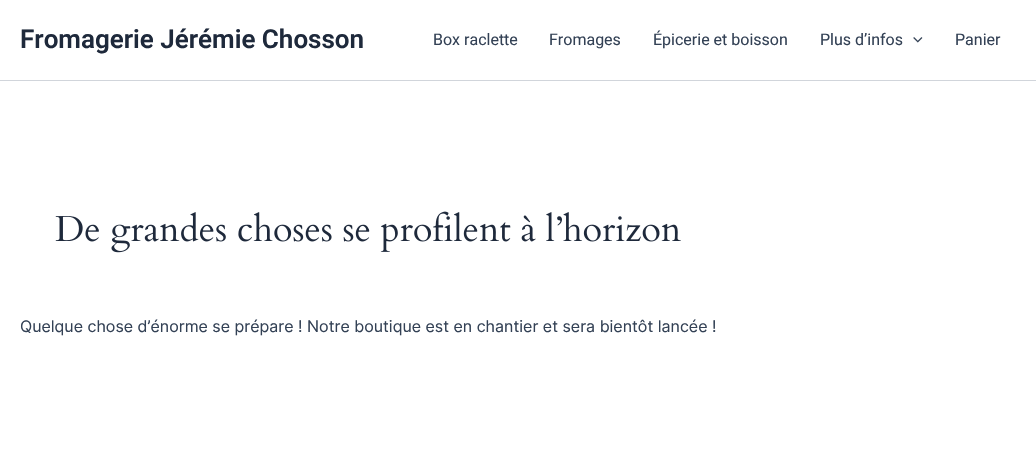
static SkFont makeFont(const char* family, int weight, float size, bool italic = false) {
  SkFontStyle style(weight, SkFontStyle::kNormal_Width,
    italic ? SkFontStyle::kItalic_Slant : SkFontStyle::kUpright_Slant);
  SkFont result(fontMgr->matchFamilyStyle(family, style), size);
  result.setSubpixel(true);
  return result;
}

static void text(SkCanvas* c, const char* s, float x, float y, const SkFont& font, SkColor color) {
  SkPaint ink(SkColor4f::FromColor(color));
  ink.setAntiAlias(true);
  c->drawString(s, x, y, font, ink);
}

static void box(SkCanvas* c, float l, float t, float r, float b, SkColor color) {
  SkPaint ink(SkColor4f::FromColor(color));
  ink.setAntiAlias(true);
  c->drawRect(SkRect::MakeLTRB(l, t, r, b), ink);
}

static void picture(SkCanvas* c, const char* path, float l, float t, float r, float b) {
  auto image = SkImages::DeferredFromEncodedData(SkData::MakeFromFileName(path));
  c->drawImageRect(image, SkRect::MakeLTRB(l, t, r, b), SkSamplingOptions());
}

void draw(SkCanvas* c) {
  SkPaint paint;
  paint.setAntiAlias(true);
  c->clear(0xffffffff);
  box(c, 0, 80, 1036, 81, 0xffd1d5db);
  SkFont face1 = makeFont("Roboto", 600, 26);
  text(c, "Fromagerie Jérémie Chosson", 20, 48, face1, 0xff1e293b);
  SkFont face2 = makeFont("Roboto", 400, 16);
  text(c, "Box raclette", 433, 45, face2, 0xff334155);
  text(c, "Fromages", 549, 45, face2, 0xff334155);
  text(c, "Épicerie et boisson", 653, 45, face2, 0xff334155);
  text(c, "Plus d’infos", 820, 45, face2, 0xff334155);
  picture(c, "img_01.png", 913, 37, 923, 43);
  text(c, "Panier", 955, 45, face2, 0xff334155);
  picture(c, "img_02.png", 55, 211, 681, 253);
  SkFont face3 = makeFont("Inter", 400, 16);
  text(c, "Quelque chose d’énorme se prépare ! Notre boutique est en chantier et sera bientôt lancée !", 20, 332, face3, 0xff334155);
}
